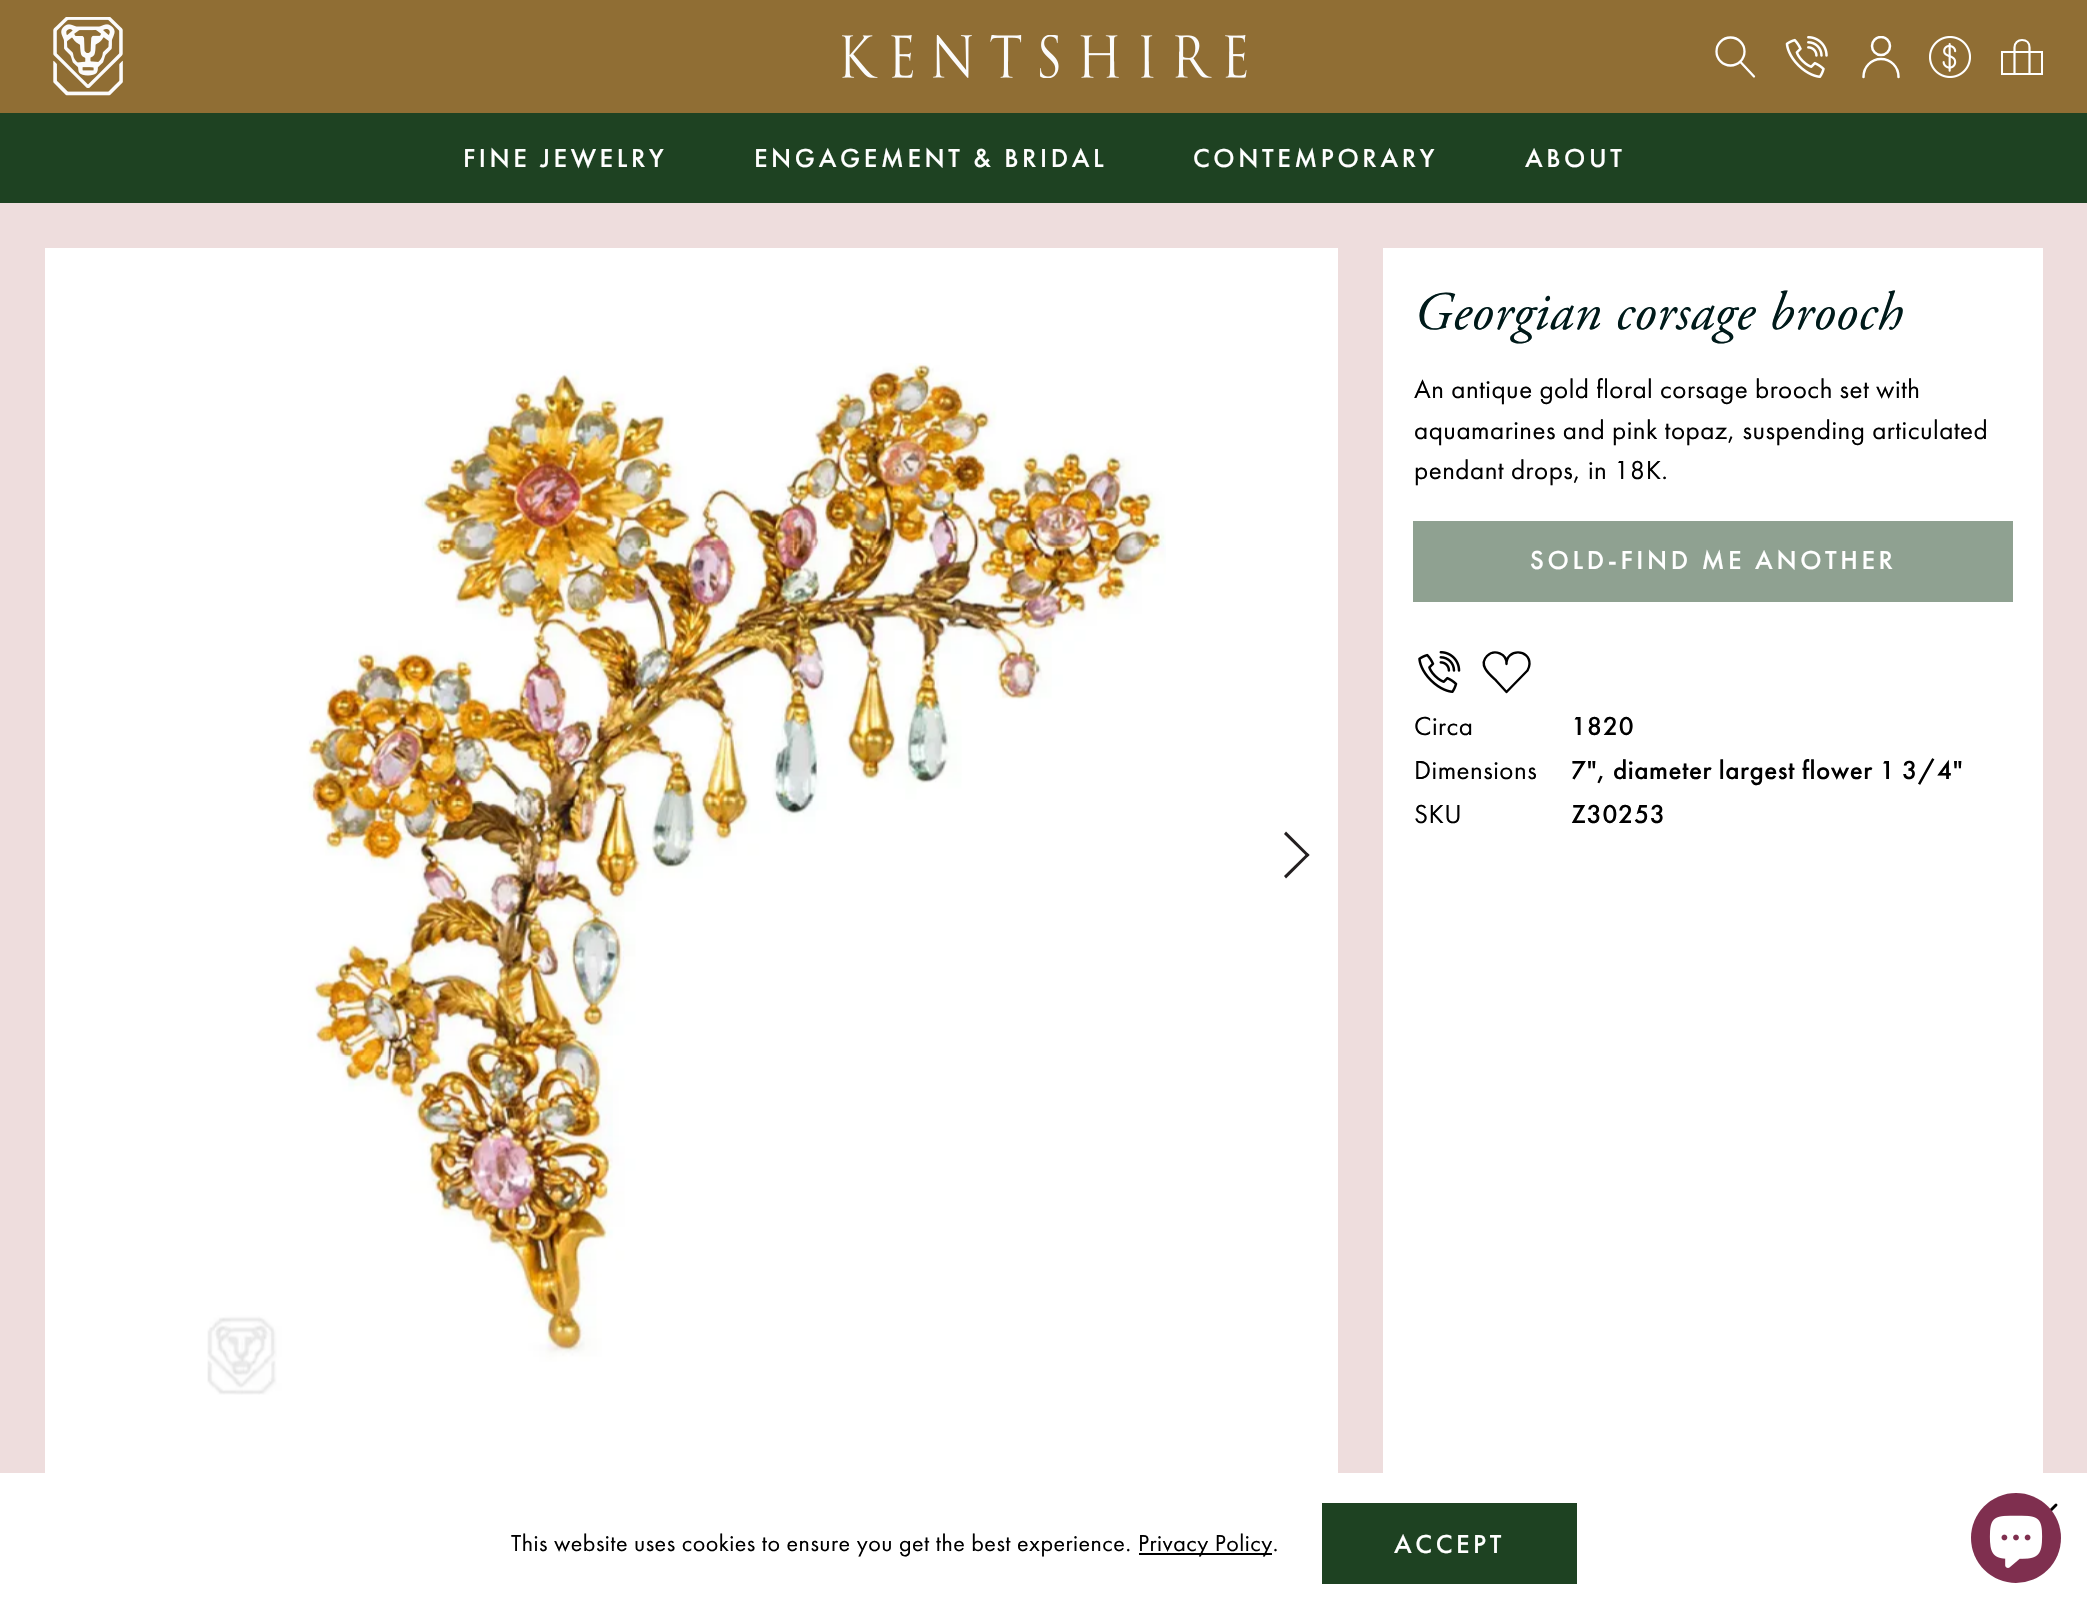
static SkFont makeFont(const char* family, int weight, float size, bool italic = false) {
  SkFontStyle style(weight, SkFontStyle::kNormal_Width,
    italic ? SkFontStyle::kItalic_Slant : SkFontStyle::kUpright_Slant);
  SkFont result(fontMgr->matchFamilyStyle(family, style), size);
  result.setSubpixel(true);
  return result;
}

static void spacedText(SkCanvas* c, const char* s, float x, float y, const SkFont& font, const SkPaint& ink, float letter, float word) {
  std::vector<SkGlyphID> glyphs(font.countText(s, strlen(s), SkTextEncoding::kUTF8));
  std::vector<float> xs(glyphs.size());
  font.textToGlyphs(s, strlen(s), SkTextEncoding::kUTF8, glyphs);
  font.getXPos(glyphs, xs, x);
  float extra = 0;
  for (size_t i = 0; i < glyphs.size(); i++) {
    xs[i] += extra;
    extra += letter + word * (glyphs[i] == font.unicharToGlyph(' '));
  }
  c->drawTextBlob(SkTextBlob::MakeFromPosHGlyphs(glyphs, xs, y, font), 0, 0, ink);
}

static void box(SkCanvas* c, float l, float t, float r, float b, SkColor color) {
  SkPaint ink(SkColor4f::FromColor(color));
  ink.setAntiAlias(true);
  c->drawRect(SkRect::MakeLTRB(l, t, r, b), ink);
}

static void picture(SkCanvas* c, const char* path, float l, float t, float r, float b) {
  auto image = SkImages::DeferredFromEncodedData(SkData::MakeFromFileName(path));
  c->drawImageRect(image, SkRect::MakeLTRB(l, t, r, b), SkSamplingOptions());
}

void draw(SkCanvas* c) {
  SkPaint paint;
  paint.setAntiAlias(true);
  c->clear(0xffeedddd);
  box(c, 0, 0, 2087, 113, 0xff906e34);
  picture(c, "img_01.png", 53, 17, 123, 96);
  picture(c, "img_02.png", 842, 35, 1247, 78);
  paint.setStyle(SkPaint::kStroke_Style);
  paint.setStrokeWidth(2.3f);
  paint.setColor(0xffffffff);
  c->drawCircle(1730.5f, 51.5f, 14, paint);
  paint.setStrokeCap(SkPaint::kRound_Cap);
  paint.setStrokeJoin(SkPaint::kRound_Join);
  c->drawPath(SkPathBuilder().moveTo(1740.5f, 62).lineTo(1754, 76.5f).detach(), paint);
  picture(c, "img_03.png", 1785, 36, 1828, 78);
  c->save();
  c->clipRect(SkRect::MakeLTRB(1857, 36, 1905, 78));
  paint.setStrokeWidth(2.5f);
  paint.setStrokeCap(SkPaint::kButt_Cap);
  paint.setStrokeJoin(SkPaint::kMiter_Join);
  c->drawCircle(1881, 46, 9, paint);
  c->restore();
  paint.setStrokeCap(SkPaint::kRound_Cap);
  paint.setStrokeJoin(SkPaint::kRound_Join);
  c->drawPath(SkPathBuilder().moveTo(1898.5f, 77).cubicTo(1898.5f, 67, 1891, 59, 1881, 59).cubicTo(1871, 59, 1863.5f, 67, 1863.5f, 77).detach(), paint);
  picture(c, "img_04.png", 1929, 36, 1971, 78);
  paint.setStrokeWidth(2);
  paint.setStrokeCap(SkPaint::kButt_Cap);
  paint.setStrokeJoin(SkPaint::kMiter_Join);
  c->drawRect(SkRect::MakeLTRB(2002, 52, 2042, 74), paint);
  paint.setStrokeWidth(2.2f);
  paint.setStrokeCap(SkPaint::kRound_Cap);
  paint.setStrokeJoin(SkPaint::kRound_Join);
  c->drawPath(SkPathBuilder().moveTo(2014.5f, 74).lineTo(2014.5f, 47.5f).cubicTo(2014.5f, 43, 2018, 40, 2022, 40).cubicTo(2026.5f, 40, 2029.5f, 43, 2029.5f, 47.5f).lineTo(2029.5f, 74).detach(), paint);
  box(c, 0, 113, 2087, 203, 0xff1e4222);
  SkFont face1 = makeFont("Futura PT", 500, 27);
  paint.setStyle(SkPaint::kFill_Style);
  spacedText(c, "FINE JEWELRY", 463, 167, face1, paint, 3.6f, 0);
  spacedText(c, "ENGAGEMENT & BRIDAL", 754, 167, face1, paint, 3.6f, 0);
  spacedText(c, "CONTEMPORARY", 1193, 167, face1, paint, 3.6f, 0);
  spacedText(c, "ABOUT", 1525, 167, face1, paint, 3.6f, 0);
  box(c, 45, 248, 1338, 1473, 0xffffffff);
  picture(c, "img_05.png", 207, 363, 1166, 1395);
  paint.setColor(0xff231f20);
  c->drawPath(SkPathBuilder().moveTo(1284, 834).lineTo(1286, 831.5f).lineTo(1309.5f, 855).lineTo(1307.5f, 857).close().detach(), paint);
  c->drawPath(SkPathBuilder().moveTo(1284, 876).lineTo(1307.5f, 853).lineTo(1309.5f, 855).lineTo(1286, 878.5f).close().detach(), paint);
  box(c, 1383, 248, 2043, 1473, 0xffffffff);
  SkFont face2 = makeFont("Adobe Garamond", 400, 54, true);
  paint.setColor(0xff001a1a);
  spacedText(c, "Georgian corsage brooch", 1414, 329, face2, paint, 0.48f, 0);
  SkFont face3 = makeFont("Futura PT", 400, 27);
  paint.setColor(0xff000000);
  spacedText(c, "An antique gold floral corsage brooch set with", 1414, 398, face3, paint, 0.48f, 0);
  spacedText(c, "aquamarines and pink topaz, suspending articulated", 1414, 439, face3, paint, 0.48f, 0);
  spacedText(c, "pendant drops, in 18K.", 1414, 479, face3, paint, 0.48f, 0);
  box(c, 1413, 521, 2013, 602, 0xff8fa191);
  paint.setColor(0xffffffff);
  spacedText(c, "SOLD-FIND ME ANOTHER", 1530, 569, face1, paint, 3.6f, 0);
  picture(c, "img_06.png", 1418, 651, 1461, 693);
  paint.setStyle(SkPaint::kStroke_Style);
  paint.setStrokeWidth(2.4f);
  paint.setColor(0xff000000);
  c->drawPath(SkPathBuilder().moveTo(1529.5f, 664).cubicTo(1530, 648.5f, 1506, 648.5f, 1506.5f, 664).cubicTo(1507, 654, 1494.5f, 648.5f, 1487, 656).cubicTo(1478, 665, 1489.5f, 674.5f, 1496, 680.5f).lineTo(1506.5f, 692).lineTo(1527.5f, 670.5f).cubicTo(1528.5f, 668.5f, 1529.5f, 666.5f, 1529.5f, 664).close().detach(), paint);
  paint.setStyle(SkPaint::kFill_Style);
  spacedText(c, "Circa", 1414, 735, face3, paint, 0.48f, 0);
  spacedText(c, "1820", 1571, 735, face1, paint, 0.48f, 0);
  spacedText(c, "Dimensions", 1414, 779, face3, paint, 0.48f, 0);
  spacedText(c, "7\", diameter largest flower 1 3/4\"", 1571, 779, face1, paint, 0.48f, 0);
  spacedText(c, "SKU", 1414, 823, face3, paint, 0.48f, 0);
  spacedText(c, "Z30253", 1571, 823, face1, paint, 0.48f, 0);
  box(c, 0, 1473, 2087, 1613, 0xffffffff);
  paint.setStyle(SkPaint::kStroke_Style);
  paint.setStrokeWidth(2.9f);
  c->drawPath(SkPathBuilder().moveTo(2056, 1505).lineTo(2034.5f, 1526.5f).detach(), paint);
  SkFont face4 = makeFont("Futura PT", 400, 24);
  paint.setStyle(SkPaint::kFill_Style);
  spacedText(c, "This website uses cookies to ensure you get the best experience.", 511, 1551, face4, paint, 0.48f, 0);
  box(c, 1139, 1553, 1272, 1555, 0xff000000);
  spacedText(c, "Privacy Policy.", 1138, 1551, face4, paint, 0.48f, 0);
  box(c, 1322, 1503, 1577, 1584, 0xff1e4222);
  paint.setColor(0xffffffff);
  spacedText(c, "ACCEPT", 1394, 1553, face1, paint, 3.6f, 0);
  paint.setColor(0xff7f2f4f);
  c->drawCircle(2016, 1538, 45, paint);
  picture(c, "img_07.png", 1989, 1515, 2043, 1568);
}
